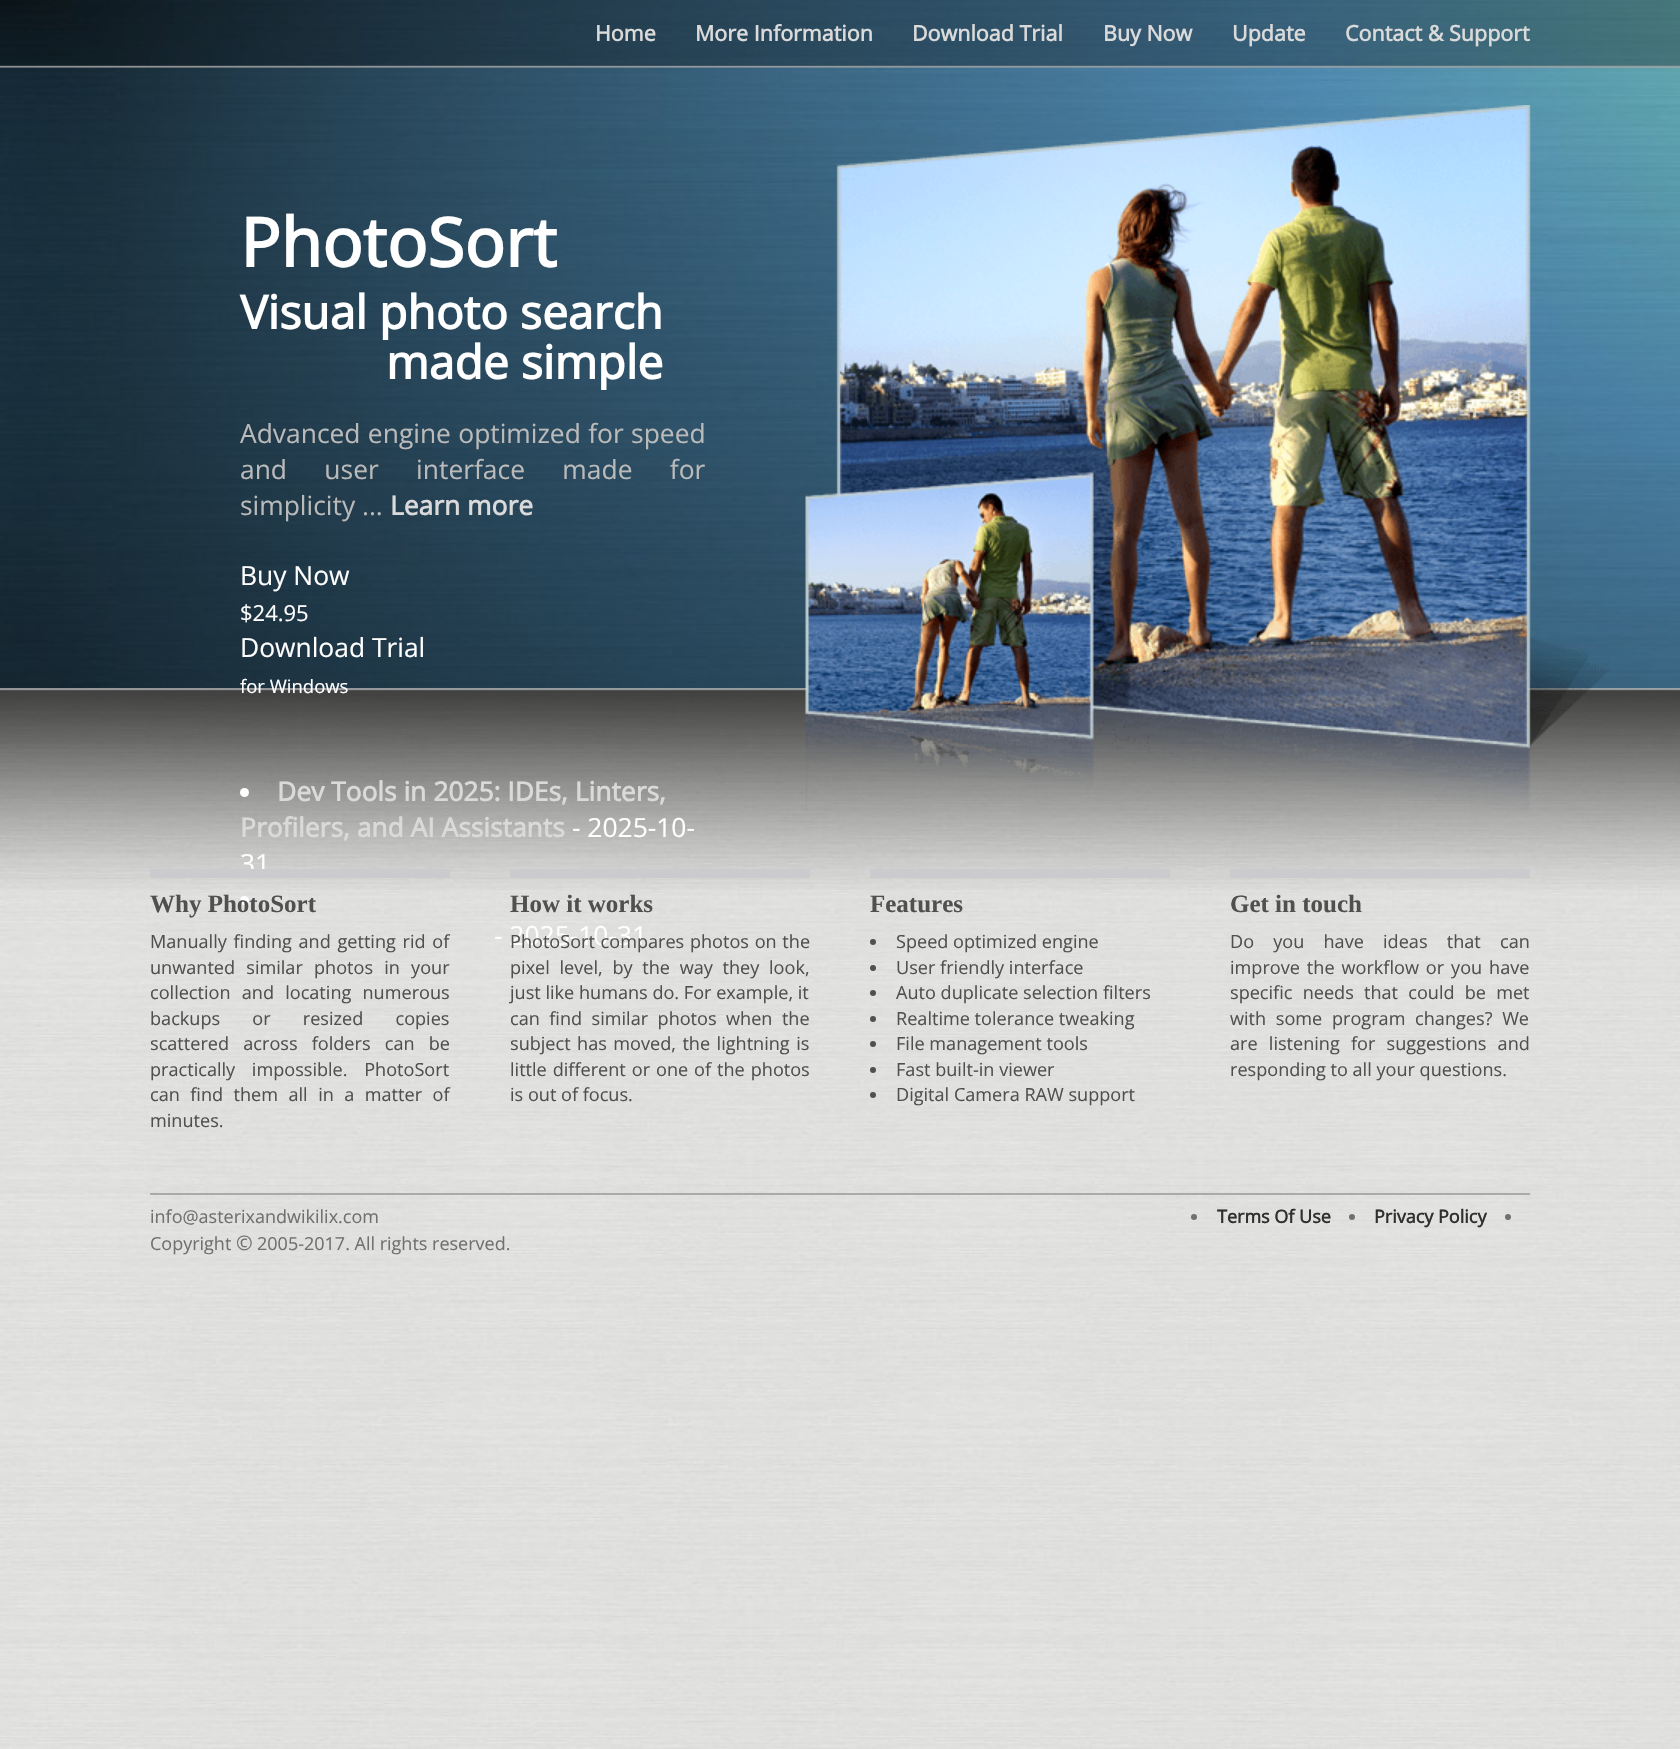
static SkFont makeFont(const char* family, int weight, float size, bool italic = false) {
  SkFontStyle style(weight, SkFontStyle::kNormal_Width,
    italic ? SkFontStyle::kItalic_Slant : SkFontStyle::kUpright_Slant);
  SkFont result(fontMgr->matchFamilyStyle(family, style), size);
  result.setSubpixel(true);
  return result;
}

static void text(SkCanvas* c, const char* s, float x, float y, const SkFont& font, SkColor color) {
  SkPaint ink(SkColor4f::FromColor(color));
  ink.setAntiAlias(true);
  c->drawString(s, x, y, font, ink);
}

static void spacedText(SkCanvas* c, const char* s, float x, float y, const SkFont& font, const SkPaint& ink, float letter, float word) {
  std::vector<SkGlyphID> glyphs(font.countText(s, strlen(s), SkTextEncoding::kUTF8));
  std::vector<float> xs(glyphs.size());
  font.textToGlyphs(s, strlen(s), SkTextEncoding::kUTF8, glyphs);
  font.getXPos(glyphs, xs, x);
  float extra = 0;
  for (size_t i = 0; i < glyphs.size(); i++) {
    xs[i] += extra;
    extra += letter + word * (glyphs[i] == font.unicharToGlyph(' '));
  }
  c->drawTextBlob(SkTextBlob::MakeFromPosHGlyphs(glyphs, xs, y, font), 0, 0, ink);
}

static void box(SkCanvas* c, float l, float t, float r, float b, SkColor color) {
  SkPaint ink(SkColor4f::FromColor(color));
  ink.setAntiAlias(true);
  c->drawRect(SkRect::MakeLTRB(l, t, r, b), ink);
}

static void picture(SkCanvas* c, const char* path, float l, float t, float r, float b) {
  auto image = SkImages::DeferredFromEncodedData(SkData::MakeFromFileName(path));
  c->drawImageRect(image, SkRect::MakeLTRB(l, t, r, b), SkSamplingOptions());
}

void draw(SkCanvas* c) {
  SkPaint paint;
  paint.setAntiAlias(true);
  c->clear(0xffffffff);
  picture(c, "img_01.png", 0, 688, 1680, 1749);
  picture(c, "img_02.png", 0, 0, 1680, 689);
  picture(c, "img_03.png", 0, 0, 1680, 68);
  SkFont face1 = makeFont("Open Sans", 700, 21.5f);
  text(c, "Home", 595, 41, face1, 0xffdadada);
  text(c, "More Information", 695, 41, face1, 0xffdadada);
  text(c, "Download Trial", 912, 41, face1, 0xffdadada);
  text(c, "Buy Now", 1103, 41, face1, 0xffdadada);
  text(c, "Update", 1232, 41, face1, 0xffdadada);
  text(c, "Contact & Support", 1345, 41, face1, 0xffdadada);
  SkFont face2 = makeFont("Open Sans", 700, 67.5f);
  text(c, "PhotoSort", 240, 267, face2, 0xffffffff);
  SkFont face3 = makeFont("Open Sans", 700, 46.25f);
  text(c, "Visual photo search", 240, 329, face3, 0xffffffff);
  text(c, "made simple", 386, 379, face3, 0xffffffff);
  SkFont face4 = makeFont("Open Sans", 400, 26.4f);
  paint.setColor(0xffbababa);
  spacedText(c, "Advanced engine optimized for speed", 240, 443, face4, paint, 0, 0.5f);
  spacedText(c, "and user interface made for", 240, 479, face4, paint, 0, 30.5f);
  text(c, "simplicity ...", 240, 515, face4, 0xffbababa);
  SkFont face5 = makeFont("Open Sans", 700, 26.4f);
  text(c, "Learn more", 390, 515, face5, 0xffdadada);
  text(c, "Buy Now", 240, 585, face4, 0xffffffff);
  SkFont face6 = makeFont("Open Sans", 400, 22);
  text(c, "$24.95", 240, 621, face6, 0xffffffff);
  text(c, "Download Trial", 240, 657, face4, 0xffffffff);
  picture(c, "img_05.png", 0, 688, 1680, 890);
  SkFont face7 = makeFont("Open Sans", 400, 18.5f);
  text(c, "for Windows", 240, 693, face7, 0xffffffff);
  paint.setColor(0xffffffff);
  c->drawCircle(244.5f, 792.5f, 4.5f, paint);
  text(c, "Dev Tools in 2025: IDEs, Linters,", 277, 801, face5, 0xffdadada);
  text(c, "Profilers, and AI Assistants", 240, 837, face5, 0xffdadada);
  text(c, "- 2025-10-", 572, 837, face4, 0xffffffff);
  text(c, "31", 240, 873, face4, 0xffffffff);
  c->drawCircle(244.5f, 900.5f, 4.5f, paint);
  text(c, "- 2025-10-31", 494, 945, face4, 0xffffffff);
  picture(c, "img_04.png", 805, 105, 1610, 811);
  box(c, 150, 869, 450, 878, 0xffcacacf);
  SkFont face8 = makeFont("Liberation Serif", 700, 25);
  text(c, "Why PhotoSort", 150, 912, face8, 0xff505050);
  SkFont face9 = makeFont("Open Sans", 400, 18.1f);
  paint.setColor(0xff505050);
  spacedText(c, "Manually finding and getting rid of", 150, 948, face9, paint, 0, 2);
  spacedText(c, "unwanted similar photos in your", 150, 974, face9, paint, 0, 6.5f);
  spacedText(c, "collection and locating numerous", 150, 999, face9, paint, 0, 6.5f);
  spacedText(c, "backups or resized copies", 150, 1025, face9, paint, 0, 27.5f);
  spacedText(c, "scattered across folders can be", 150, 1050, face9, paint, 0, 9.5f);
  spacedText(c, "practically impossible. PhotoSort", 150, 1076, face9, paint, 0, 12);
  spacedText(c, "can find them all in a matter of", 150, 1101, face9, paint, 0, 5.75f);
  text(c, "minutes.", 150, 1127, face9, 0xff505050);
  box(c, 510, 869, 810, 878, 0xffcacacf);
  text(c, "How it works", 510, 912, face8, 0xff505050);
  spacedText(c, "PhotoSort compares photos on the", 510, 948, face9, paint, 0, 1);
  spacedText(c, "pixel level, by the way they look,", 510, 974, face9, paint, 0, 5);
  text(c, "just like humans do. For example, it", 510, 999, face9, 0xff505050);
  spacedText(c, "can find similar photos when the", 510, 1025, face9, paint, 0, 4.75f);
  spacedText(c, "subject has moved, the lightning is", 510, 1050, face9, paint, 0, 1.75f);
  spacedText(c, "little different or one of the photos", 510, 1076, face9, paint, 0, 1.25f);
  text(c, "is out of focus.", 510, 1101, face9, 0xff505050);
  box(c, 870, 869, 1170, 878, 0xffcacacf);
  text(c, "Features", 870, 912, face8, 0xff505050);
  c->drawCircle(873, 942, 3, paint);
  text(c, "Speed optimized engine", 896, 948, face9, 0xff505050);
  c->drawCircle(873, 968, 3, paint);
  text(c, "User friendly interface", 896, 974, face9, 0xff505050);
  c->drawCircle(873, 993, 3, paint);
  text(c, "Auto duplicate selection filters", 896, 999, face9, 0xff505050);
  c->drawCircle(873, 1019, 3, paint);
  text(c, "Realtime tolerance tweaking", 896, 1025, face9, 0xff505050);
  c->drawCircle(873, 1044, 3, paint);
  text(c, "File management tools", 896, 1050, face9, 0xff505050);
  c->drawCircle(873, 1070, 3, paint);
  text(c, "Fast built-in viewer", 896, 1076, face9, 0xff505050);
  c->drawCircle(873, 1095, 3, paint);
  text(c, "Digital Camera RAW support", 896, 1101, face9, 0xff505050);
  box(c, 1230, 869, 1530, 878, 0xffcacacf);
  text(c, "Get in touch", 1230, 912, face8, 0xff505050);
  spacedText(c, "Do you have ideas that can", 1230, 948, face9, paint, 0, 14.5f);
  spacedText(c, "improve the workflow or you have", 1230, 974, face9, paint, 0, 2.25f);
  spacedText(c, "specific needs that could be met", 1230, 999, face9, paint, 0, 5.5f);
  spacedText(c, "with some program changes? We", 1230, 1025, face9, paint, 0, 5);
  spacedText(c, "are listening for suggestions and", 1230, 1050, face9, paint, 0, 6.5f);
  text(c, "responding to all your questions.", 1230, 1076, face9, 0xff505050);
  box(c, 150, 1193, 1530, 1195, 0xffaaaaaa);
  SkFont face10 = makeFont("Open Sans", 400, 18);
  text(c, "info@asterixandwikilix.com", 150, 1223, face10, 0xff707070);
  text(c, "Copyright", 150, 1250, face10, 0xff707070);
  SkFont face11 = makeFont("Open Sans", 400, 20);
  text(c, "©", 236, 1250, face11, 0xff707070);
  text(c, "2005-2017. All rights reserved.", 257, 1250, face10, 0xff707070);
  paint.setColor(0xff707070);
  c->drawCircle(1194, 1217, 3, paint);
  SkFont face12 = makeFont("Open Sans", 700, 18);
  text(c, "Terms Of Use", 1217, 1223, face12, 0xff303030);
  c->drawCircle(1352, 1217, 3, paint);
  text(c, "Privacy Policy", 1374, 1223, face12, 0xff303030);
  c->drawCircle(1508, 1217, 3, paint);
}
